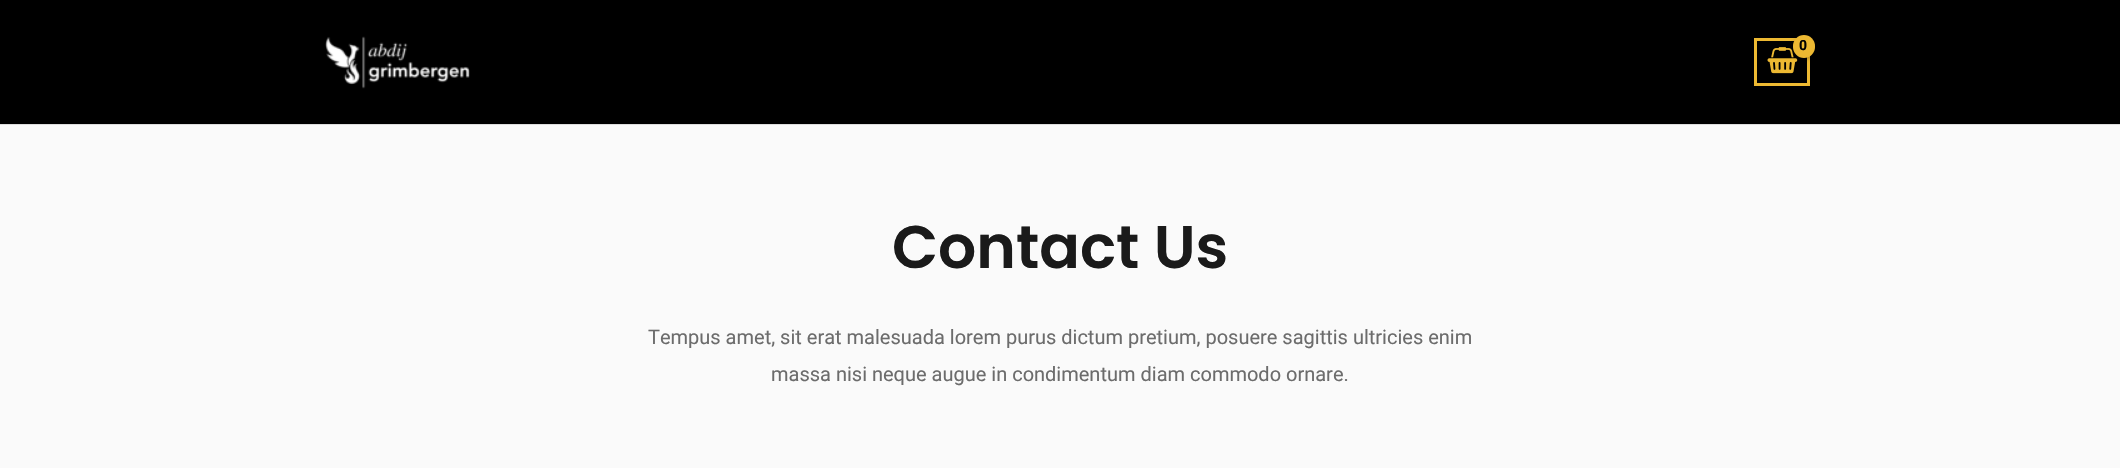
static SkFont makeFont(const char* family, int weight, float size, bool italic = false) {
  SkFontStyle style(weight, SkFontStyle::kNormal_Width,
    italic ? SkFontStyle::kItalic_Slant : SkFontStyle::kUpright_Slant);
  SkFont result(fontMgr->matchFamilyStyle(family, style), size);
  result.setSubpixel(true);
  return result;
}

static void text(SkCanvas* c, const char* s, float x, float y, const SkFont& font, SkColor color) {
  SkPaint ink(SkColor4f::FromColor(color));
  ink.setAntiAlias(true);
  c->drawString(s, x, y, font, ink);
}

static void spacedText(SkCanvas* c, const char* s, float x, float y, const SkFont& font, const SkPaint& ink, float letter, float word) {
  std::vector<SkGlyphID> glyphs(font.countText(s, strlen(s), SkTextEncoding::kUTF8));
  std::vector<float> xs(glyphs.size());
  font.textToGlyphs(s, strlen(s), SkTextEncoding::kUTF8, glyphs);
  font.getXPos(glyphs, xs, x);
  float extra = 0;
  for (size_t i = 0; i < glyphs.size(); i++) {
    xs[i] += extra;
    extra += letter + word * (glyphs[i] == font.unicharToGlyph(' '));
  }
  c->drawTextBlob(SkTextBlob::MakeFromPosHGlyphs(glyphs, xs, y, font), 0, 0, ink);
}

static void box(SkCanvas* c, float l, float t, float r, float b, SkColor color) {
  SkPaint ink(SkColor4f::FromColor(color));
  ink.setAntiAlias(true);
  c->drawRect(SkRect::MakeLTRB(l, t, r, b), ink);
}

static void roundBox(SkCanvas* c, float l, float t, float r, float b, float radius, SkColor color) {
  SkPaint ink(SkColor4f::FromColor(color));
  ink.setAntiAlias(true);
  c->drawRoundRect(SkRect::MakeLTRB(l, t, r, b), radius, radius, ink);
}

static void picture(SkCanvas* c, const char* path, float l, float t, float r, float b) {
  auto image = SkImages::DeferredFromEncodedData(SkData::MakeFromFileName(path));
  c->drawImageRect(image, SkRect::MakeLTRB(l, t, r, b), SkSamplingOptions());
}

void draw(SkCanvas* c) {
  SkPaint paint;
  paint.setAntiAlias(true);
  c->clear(0xfffafafa);
  box(c, 0, 0, 2120, 124, 0xff000000);
  box(c, 0, 124, 2120, 125, 0xffdddddd);
  picture(c, "img_01.png", 325, 36, 470, 89);
  paint.setStyle(SkPaint::kStroke_Style);
  paint.setStrokeWidth(3);
  paint.setColor(0xffedb932);
  c->drawRect(SkRect::MakeLTRB(1755.5f, 39.5f, 1808.5f, 84.5f), paint);
  picture(c, "img_02.png", 1767, 47, 1798, 74);
  paint.setStyle(SkPaint::kFill_Style);
  paint.setColor(0x4d000000);
  paint.setMaskFilter(SkMaskFilter::MakeBlur(kNormal_SkBlurStyle, 2));
  c->drawRoundRect(SkRect::MakeLTRB(1794, 36, 1816, 59), 11, 11, paint);
  paint.setMaskFilter(nullptr);
  roundBox(c, 1793, 35, 1815, 58, 11, 0xffedb932);
  SkFont face1 = makeFont("Roboto", 700, 14);
  paint.setColor(0xff000000);
  spacedText(c, "0", 1799, 50, face1, paint, -1, 0);
  SkFont face2 = makeFont("Poppins", 600, 60);
  text(c, "Contact Us", 892, 268, face2, 0xff1a1a1a);
  SkFont face3 = makeFont("Roboto", 400, 20);
  text(c, "Tempus amet, sit erat malesuada lorem purus dictum pretium, posuere sagittis ultricies enim", 648, 344, face3, 0xff6c6c6c);
  text(c, "massa nisi neque augue in condimentum diam commodo ornare.", 771, 381, face3, 0xff6c6c6c);
}
